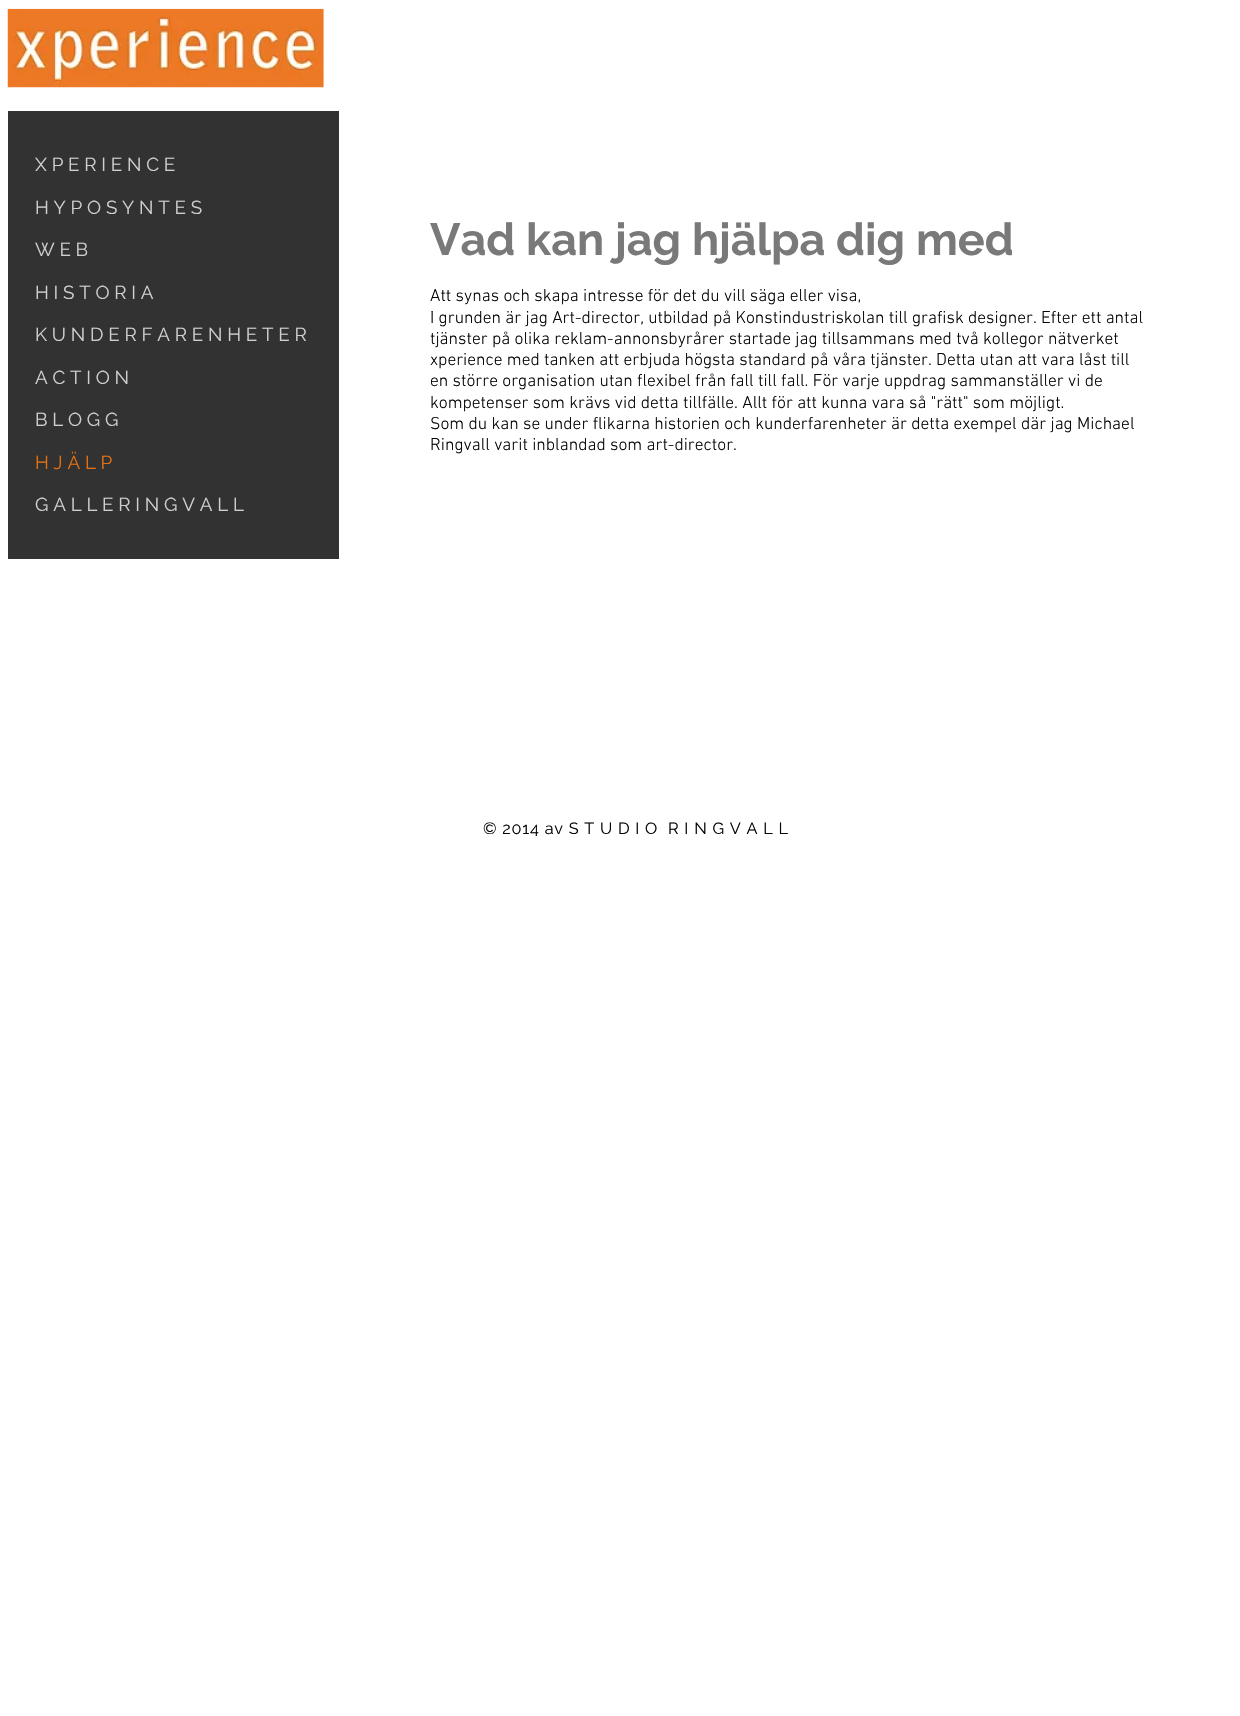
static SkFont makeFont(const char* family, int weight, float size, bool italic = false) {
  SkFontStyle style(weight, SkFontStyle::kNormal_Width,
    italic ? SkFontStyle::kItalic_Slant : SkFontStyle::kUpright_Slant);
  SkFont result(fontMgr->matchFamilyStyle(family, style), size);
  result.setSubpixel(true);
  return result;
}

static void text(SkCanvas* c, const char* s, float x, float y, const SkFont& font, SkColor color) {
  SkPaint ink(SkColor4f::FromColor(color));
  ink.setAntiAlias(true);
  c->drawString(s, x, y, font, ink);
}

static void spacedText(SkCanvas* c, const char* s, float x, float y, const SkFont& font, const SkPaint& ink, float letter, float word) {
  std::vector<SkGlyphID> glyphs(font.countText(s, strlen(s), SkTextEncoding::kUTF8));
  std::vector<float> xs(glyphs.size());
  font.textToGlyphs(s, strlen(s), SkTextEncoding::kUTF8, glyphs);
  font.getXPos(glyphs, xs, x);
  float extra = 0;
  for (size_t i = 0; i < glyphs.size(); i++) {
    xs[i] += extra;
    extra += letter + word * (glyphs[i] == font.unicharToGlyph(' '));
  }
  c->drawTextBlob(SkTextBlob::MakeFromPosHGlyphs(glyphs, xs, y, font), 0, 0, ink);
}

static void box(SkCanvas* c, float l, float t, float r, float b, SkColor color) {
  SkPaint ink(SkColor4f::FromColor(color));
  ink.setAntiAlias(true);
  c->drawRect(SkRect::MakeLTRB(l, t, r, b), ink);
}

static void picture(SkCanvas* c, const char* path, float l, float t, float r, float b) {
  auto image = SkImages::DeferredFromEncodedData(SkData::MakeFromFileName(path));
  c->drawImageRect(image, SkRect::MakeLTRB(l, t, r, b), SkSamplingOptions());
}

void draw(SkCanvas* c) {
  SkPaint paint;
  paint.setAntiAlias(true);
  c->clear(0xffffffff);
  picture(c, "img_01.png", 7, 8, 324, 88);
  box(c, 8, 111, 339, 559, 0xff323232);
  SkFont face1 = makeFont("Raleway", 400, 18.75f);
  text(c, "X P E R I E N C E", 35, 171, face1, 0xffcfcfcf);
  text(c, "H Y P O S Y N T E S", 35, 214, face1, 0xffcfcfcf);
  text(c, "W E B", 35, 256, face1, 0xffcfcfcf);
  text(c, "H I S T O R I A", 35, 299, face1, 0xffcfcfcf);
  text(c, "K U N D E R F A R E N H E T E R", 35, 341, face1, 0xffcfcfcf);
  text(c, "A C T I O N", 35, 384, face1, 0xffcfcfcf);
  text(c, "B L O G G", 35, 426, face1, 0xffcfcfcf);
  text(c, "H J Ä L P", 35, 469, face1, 0xffe47011);
  text(c, "G A L L E R I N G V A L L", 35, 511, face1, 0xffcfcfcf);
  SkFont face2 = makeFont("Raleway", 700, 45);
  text(c, "Vad kan jag hjälpa dig med", 430, 255, face2, 0xff797979);
  SkFont face3 = makeFont("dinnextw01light", 300, 17.5f);
  text(c, "Att synas och skapa intresse för det du vill säga eller visa,", 430, 301, face3, 0xff050505);
  text(c, "I grunden är jag Art-director, utbildad på Konstindustriskolan till grafisk designer. Efter ett antal", 430, 323, face3, 0xff050505);
  text(c, "tjänster på olika reklam-annonsbyrårer startade jag tillsammans med två kollegor nätverket", 430, 344, face3, 0xff050505);
  text(c, "xperience med tanken att erbjuda högsta standard på våra tjänster. Detta utan att vara låst till", 430, 365, face3, 0xff050505);
  text(c, "en större organisation utan flexibel från fall till fall. För varje uppdrag sammanställer vi de", 430, 386, face3, 0xff050505);
  text(c, "kompetenser som krävs vid detta tillfälle. Allt för att kunna vara så \"rätt\" som möjligt.", 430, 408, face3, 0xff050505);
  text(c, "Som du kan se under flikarna historien och kunderfarenheter är detta exempel där jag Michael", 430, 429, face3, 0xff050505);
  text(c, "Ringvall varit inblandad som art-director.", 430, 450, face3, 0xff050505);
  SkFont face4 = makeFont("Raleway", 400, 16.25f);
  paint.setColor(0xff050505);
  spacedText(c, "© 2014 av S T U D I O  R I N G V A L L", 483, 834, face4, paint, 0.8f, 0);
}
